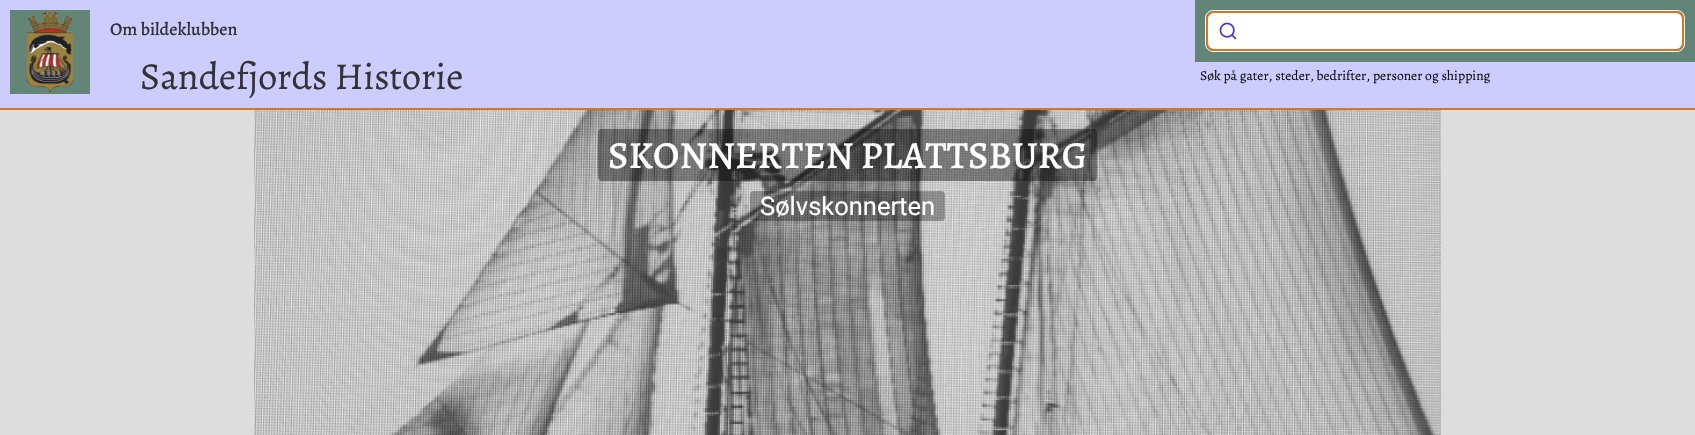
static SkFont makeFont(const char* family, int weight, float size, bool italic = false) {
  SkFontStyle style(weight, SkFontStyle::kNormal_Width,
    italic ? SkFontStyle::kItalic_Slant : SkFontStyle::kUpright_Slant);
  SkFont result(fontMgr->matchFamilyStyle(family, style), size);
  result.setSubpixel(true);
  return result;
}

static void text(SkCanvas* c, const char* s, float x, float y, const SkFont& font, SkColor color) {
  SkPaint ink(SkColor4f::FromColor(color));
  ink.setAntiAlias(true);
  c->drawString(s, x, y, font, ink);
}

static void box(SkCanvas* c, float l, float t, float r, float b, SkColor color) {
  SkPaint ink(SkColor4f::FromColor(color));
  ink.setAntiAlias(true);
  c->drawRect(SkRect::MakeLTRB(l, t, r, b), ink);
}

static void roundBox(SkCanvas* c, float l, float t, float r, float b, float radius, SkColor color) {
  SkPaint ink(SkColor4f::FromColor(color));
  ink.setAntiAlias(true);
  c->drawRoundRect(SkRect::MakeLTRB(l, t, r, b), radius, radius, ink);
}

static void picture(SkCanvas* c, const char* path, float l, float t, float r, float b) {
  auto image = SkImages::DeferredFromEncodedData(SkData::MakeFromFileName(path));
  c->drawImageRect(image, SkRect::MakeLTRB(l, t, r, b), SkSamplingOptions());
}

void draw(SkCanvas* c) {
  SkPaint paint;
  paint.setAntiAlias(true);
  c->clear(0xffdddddd);
  box(c, 0, 0, 1695, 108, 0xffccccff);
  box(c, 0, 108, 1695, 110, 0xffd77525);
  box(c, 10, 10, 90, 94, 0xff628577);
  picture(c, "img_01.png", 26, 10, 74, 94);
  SkFont face1 = makeFont("Alegreya", 500, 18);
  text(c, "Om bildeklubben", 110, 35, face1, 0xff333333);
  SkFont face2 = makeFont("Alegreya", 400, 38);
  text(c, "Sandefjords Historie", 140, 89, face2, 0xff333333);
  box(c, 1195, 0, 1695, 62, 0xff628577);
  paint.setStyle(SkPaint::kStroke_Style);
  paint.setStrokeWidth(1);
  paint.setColor(0xffffffff);
  c->drawRoundRect(SkRect::MakeLTRB(1205.5f, 10.5f, 1684.5f, 51.5f), 7.5f, 7.5f, paint);
  paint.setStyle(SkPaint::kFill_Style);
  c->drawRoundRect(SkRect::MakeLTRB(1207, 12, 1683, 50), 7, 7, paint);
  paint.setStyle(SkPaint::kStroke_Style);
  paint.setStrokeWidth(2);
  paint.setColor(0xffd77525);
  c->drawRoundRect(SkRect::MakeLTRB(1207, 12, 1683, 50), 7, 7, paint);
  picture(c, "img_02.png", 1219, 22, 1237, 40);
  SkFont face3 = makeFont("Alegreya", 400, 13.6f);
  text(c, "Søk på gater, steder, bedrifter, personer og shipping", 1200, 80, face3, 0xff111111);
  picture(c, "img_03.png", 254, 110, 1441, 435);
  roundBox(c, 598, 129, 1097, 181, 4, 0x66000000);
  SkFont face4 = makeFont("Alegreya", 500, 38.4f);
  text(c, "SKONNERTEN PLATTSBURG", 608, 168, face4, 0xffffffff);
  roundBox(c, 750, 191, 945, 221, 4, 0x4d000000);
  SkFont face5 = makeFont("Roboto", 400, 25.5f);
  text(c, "Sølvskonnerten", 760, 215, face5, 0xffffffff);
}
